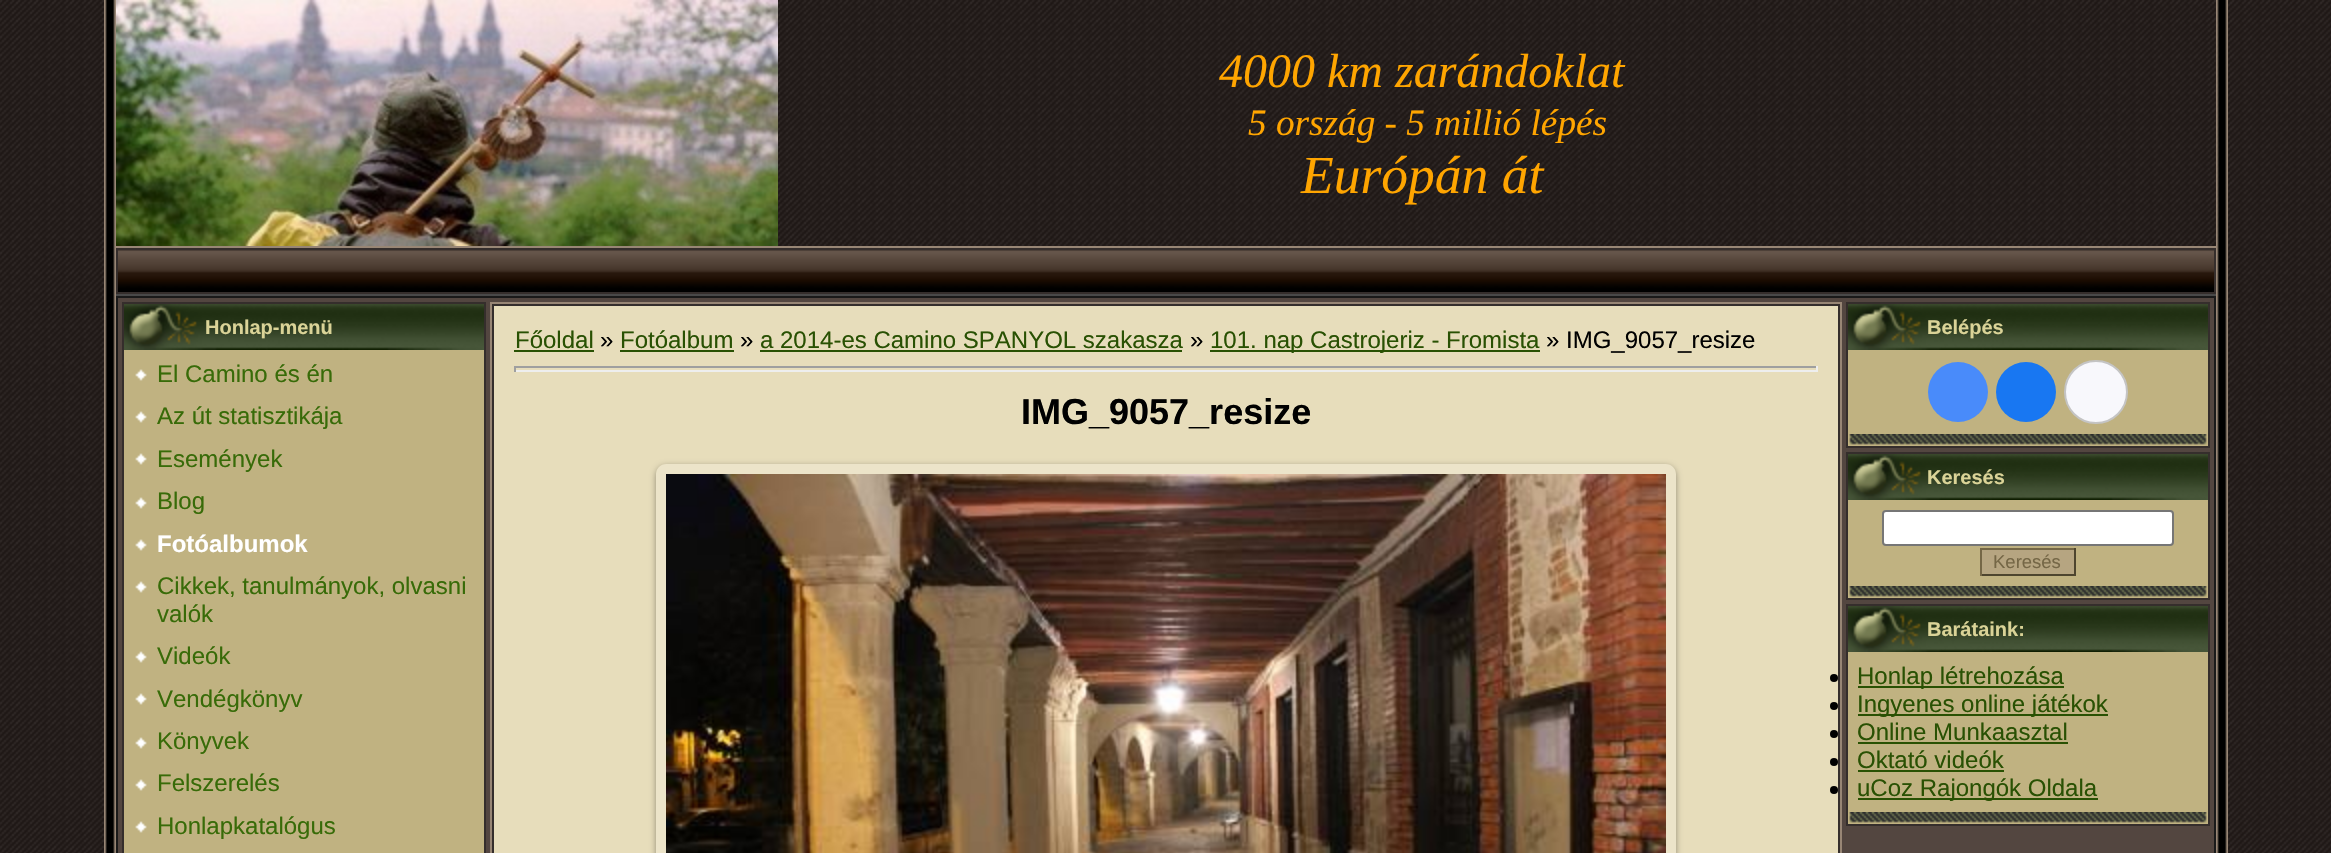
static SkFont makeFont(const char* family, int weight, float size, bool italic = false) {
  SkFontStyle style(weight, SkFontStyle::kNormal_Width,
    italic ? SkFontStyle::kItalic_Slant : SkFontStyle::kUpright_Slant);
  SkFont result(fontMgr->matchFamilyStyle(family, style), size);
  result.setSubpixel(true);
  return result;
}

static void text(SkCanvas* c, const char* s, float x, float y, const SkFont& font, SkColor color) {
  SkPaint ink(SkColor4f::FromColor(color));
  ink.setAntiAlias(true);
  c->drawString(s, x, y, font, ink);
}

static void box(SkCanvas* c, float l, float t, float r, float b, SkColor color) {
  SkPaint ink(SkColor4f::FromColor(color));
  ink.setAntiAlias(true);
  c->drawRect(SkRect::MakeLTRB(l, t, r, b), ink);
}

static void picture(SkCanvas* c, const char* path, float l, float t, float r, float b) {
  auto image = SkImages::DeferredFromEncodedData(SkData::MakeFromFileName(path));
  c->drawImageRect(image, SkRect::MakeLTRB(l, t, r, b), SkSamplingOptions());
}

void draw(SkCanvas* c) {
  SkPaint paint;
  paint.setAntiAlias(true);
  c->clear(0xffffffff);
  picture(c, "img_01.png", 0, 0, 2331, 853);
  picture(c, "img_02.png", 104, 0, 116, 853);
  box(c, 116, 246, 2216, 248, 0xff988675);
  picture(c, "img_03.png", 116, 0, 778, 246);
  SkFont face1 = makeFont("Liberation Serif", 400, 48, true);
  text(c, "4000 km zarándoklat", 1219, 87, face1, 0xffffa500);
  SkFont face2 = makeFont("Liberation Serif", 400, 37.25f, true);
  text(c, "5 ország - 5 millió lépés", 1248, 135, face2, 0xffffa500);
  SkFont face3 = makeFont("Liberation Serif", 400, 53.5f, true);
  text(c, "Európán át", 1301, 193, face3, 0xffffa500);
  picture(c, "img_04.png", 118, 250, 2214, 292);
  paint.setStyle(SkPaint::kStroke_Style);
  paint.setStrokeWidth(2);
  paint.setColor(0xff352e2c);
  c->drawRect(SkRect::MakeLTRB(117, 249, 2215, 293), paint);
  box(c, 116, 294, 2216, 296, 0xff494949);
  paint.setStyle(SkPaint::kFill_Style);
  paint.setColor(0xff534640);
  c->drawRect(SkRect::MakeLTRB(117, 297, 2215, 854), paint);
  paint.setStyle(SkPaint::kStroke_Style);
  paint.setColor(0xff1a1a1a);
  c->drawRect(SkRect::MakeLTRB(117, 297, 2215, 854), paint);
  paint.setColor(0xff352e2c);
  c->drawRect(SkRect::MakeLTRB(123, 303, 485, 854), paint);
  picture(c, "img_05.png", 124, 304, 484, 350);
  SkFont face4 = makeFont("Liberation Sans", 700, 20);
  text(c, "Honlap-menü", 205, 334, face4, 0xffdad397);
  box(c, 124, 350, 484, 853, 0xffc0b281);
  picture(c, "img_06.png", 135, 369, 147, 381);
  SkFont face5 = makeFont("Liberation Sans", 400, 24);
  text(c, "El Camino és én", 157, 382, face5, 0xff386b08);
  picture(c, "img_06.png", 135, 411, 147, 423);
  text(c, "Az út statisztikája", 157, 424, face5, 0xff386b08);
  picture(c, "img_06.png", 135, 453, 147, 465);
  text(c, "Események", 157, 467, face5, 0xff386b08);
  picture(c, "img_06.png", 135, 497, 147, 509);
  text(c, "Blog", 157, 509, face5, 0xff386b08);
  picture(c, "img_06.png", 135, 539, 147, 551);
  SkFont face6 = makeFont("Liberation Sans", 700, 24);
  text(c, "Fotóalbumok", 157, 552, face6, 0xffffffff);
  picture(c, "img_06.png", 135, 581, 147, 593);
  text(c, "Cikkek, tanulmányok, olvasni", 157, 594, face5, 0xff386b08);
  text(c, "valók", 157, 622, face5, 0xff386b08);
  picture(c, "img_06.png", 135, 651, 147, 663);
  text(c, "Videók", 157, 664, face5, 0xff386b08);
  picture(c, "img_06.png", 135, 693, 147, 705);
  text(c, "Vendégkönyv", 157, 707, face5, 0xff386b08);
  picture(c, "img_06.png", 135, 737, 147, 749);
  text(c, "Könyvek", 157, 749, face5, 0xff386b08);
  picture(c, "img_06.png", 135, 779, 147, 791);
  text(c, "Felszerelés", 157, 791, face5, 0xff386b08);
  picture(c, "img_06.png", 135, 821, 147, 833);
  text(c, "Honlapkatalógus", 157, 834, face5, 0xff386b08);
  paint.setColor(0xff988675);
  c->drawRect(SkRect::MakeLTRB(491, 303, 1841, 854), paint);
  paint.setStyle(SkPaint::kFill_Style);
  paint.setColor(0xffe7ddbb);
  c->drawRect(SkRect::MakeLTRB(493, 305, 1839, 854), paint);
  paint.setStyle(SkPaint::kStroke_Style);
  paint.setColor(0xff352e2c);
  c->drawRect(SkRect::MakeLTRB(493, 305, 1839, 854), paint);
  text(c, "Főoldal", 515, 348, face5, 0xff295103);
  box(c, 514, 350, 594, 352, 0xff295103);
  text(c, "»", 600, 348, face5, 0xff000000);
  text(c, "Fotóalbum", 620, 348, face5, 0xff295103);
  box(c, 620, 350, 734, 352, 0xff295103);
  text(c, "»", 740, 348, face5, 0xff000000);
  text(c, "a 2014-es Camino SPANYOL szakasza", 760, 348, face5, 0xff295103);
  box(c, 760, 350, 1182, 352, 0xff295103);
  text(c, "»", 1190, 348, face5, 0xff000000);
  box(c, 1210, 350, 1540, 352, 0xff295103);
  text(c, "101. nap Castrojeriz - Fromista", 1210, 348, face5, 0xff295103);
  text(c, "» IMG_9057_resize", 1546, 348, face5, 0xff000000);
  box(c, 514, 366, 1818, 368, 0xff9f9f9f);
  box(c, 1816, 366, 1818, 372, 0xffeeeeee);
  box(c, 514, 370, 1818, 372, 0xffeeeeee);
  box(c, 514, 366, 516, 372, 0xff9f9f9f);
  SkFont face7 = makeFont("Liberation Sans", 700, 36);
  text(c, "IMG_9057_resize", 1021, 424, face7, 0xff000000);
  c->save();
  c->clipPath(SkPathBuilder(SkPathFillType::kEvenOdd).moveTo(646, 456).lineTo(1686, 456).lineTo(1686, 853).lineTo(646, 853).close().moveTo(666, 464).lineTo(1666, 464).cubicTo(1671.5f, 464, 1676, 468.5f, 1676, 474).lineTo(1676, 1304).cubicTo(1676, 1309.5f, 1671.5f, 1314, 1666, 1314).lineTo(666, 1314).cubicTo(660.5f, 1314, 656, 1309.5f, 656, 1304).lineTo(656, 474).cubicTo(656, 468.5f, 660.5f, 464, 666, 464).close().detach(), true);
  paint.setStyle(SkPaint::kFill_Style);
  paint.setColor(0x5e000000);
  paint.setMaskFilter(SkMaskFilter::MakeBlur(kNormal_SkBlurStyle, 3));
  c->drawRoundRect(SkRect::MakeLTRB(656, 466, 1676, 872), 10, 10, paint);
  paint.setMaskFilter(nullptr);
  c->restore();
  picture(c, "img_07.png", 656, 464, 1676, 853);
  picture(c, "img_08.png", 666, 474, 1666, 853);
  paint.setStyle(SkPaint::kStroke_Style);
  paint.setColor(0xff352e2c);
  c->drawRect(SkRect::MakeLTRB(1847, 303, 2209, 447), paint);
  picture(c, "img_05.png", 1848, 304, 2208, 350);
  text(c, "Belépés", 1927, 334, face4, 0xffdad397);
  box(c, 1848, 350, 2208, 434, 0xffc0b281);
  paint.setStyle(SkPaint::kFill_Style);
  paint.setColor(0xff498bfa);
  c->drawCircle(1958, 392, 30, paint);
  paint.setColor(0xff1877f2);
  c->drawCircle(2026, 392, 30, paint);
  paint.setColor(0xfff8f8fc);
  c->drawCircle(2096, 392, 31, paint);
  paint.setStyle(SkPaint::kStroke_Style);
  paint.setColor(0xffc4c4c4);
  c->drawCircle(2096, 392, 31, paint);
  picture(c, "img_09.png", 1848, 434, 2208, 446);
  paint.setColor(0xff352e2c);
  c->drawRect(SkRect::MakeLTRB(1847, 453, 2209, 599), paint);
  picture(c, "img_05.png", 1848, 454, 2208, 500);
  text(c, "Keresés", 1927, 484, face4, 0xffdad397);
  box(c, 1848, 500, 2208, 586, 0xffc0b281);
  paint.setStyle(SkPaint::kFill_Style);
  paint.setColor(0xffffffff);
  c->drawRoundRect(SkRect::MakeLTRB(1883, 511, 2173, 545), 3, 3, paint);
  paint.setStyle(SkPaint::kStroke_Style);
  paint.setColor(0xff767676);
  c->drawRoundRect(SkRect::MakeLTRB(1883, 511, 2173, 545), 3, 3, paint);
  box(c, 1982, 550, 2074, 574, 0xffb6a581);
  box(c, 1980, 548, 2076, 550, 0xff756746);
  box(c, 2074, 548, 2076, 576, 0xff4e452f);
  box(c, 1980, 574, 2076, 576, 0xff4e452f);
  box(c, 1980, 548, 1982, 576, 0xff756746);
  SkFont face8 = makeFont("Liberation Sans", 400, 18.5f);
  text(c, "Keresés", 1993, 568, face8, 0xff756746);
  picture(c, "img_09.png", 1848, 586, 2208, 598);
  paint.setColor(0xff352e2c);
  c->drawRect(SkRect::MakeLTRB(1847, 605, 2209, 825), paint);
  picture(c, "img_05.png", 1848, 606, 2208, 652);
  text(c, "Barátaink:", 1927, 636, face4, 0xffdad397);
  box(c, 1848, 652, 2208, 812, 0xffc0b281);
  paint.setStyle(SkPaint::kFill_Style);
  paint.setColor(0xff000000);
  c->drawCircle(1834, 678, 4, paint);
  box(c, 1858, 686, 2064, 688, 0xff295103);
  text(c, "Honlap létrehozása", 1857, 684, face5, 0xff295103);
  c->drawCircle(1834, 706, 4, paint);
  box(c, 1858, 714, 2108, 716, 0xff295103);
  text(c, "Ingyenes online játékok", 1857, 712, face5, 0xff295103);
  c->drawCircle(1834, 734, 4, paint);
  text(c, "Online Munkaasztal", 1857, 740, face5, 0xff295103);
  box(c, 1858, 742, 2068, 744, 0xff295103);
  c->drawCircle(1834, 762, 4, paint);
  text(c, "Oktató videók", 1857, 768, face5, 0xff295103);
  box(c, 1858, 770, 2004, 772, 0xff295103);
  c->drawCircle(1834, 790, 4, paint);
  box(c, 1858, 798, 2098, 800, 0xff295103);
  text(c, "uCoz Rajongók Oldala", 1857, 796, face5, 0xff295103);
  picture(c, "img_09.png", 1848, 812, 2208, 824);
  picture(c, "img_02.png", 2216, 0, 2228, 853);
}
